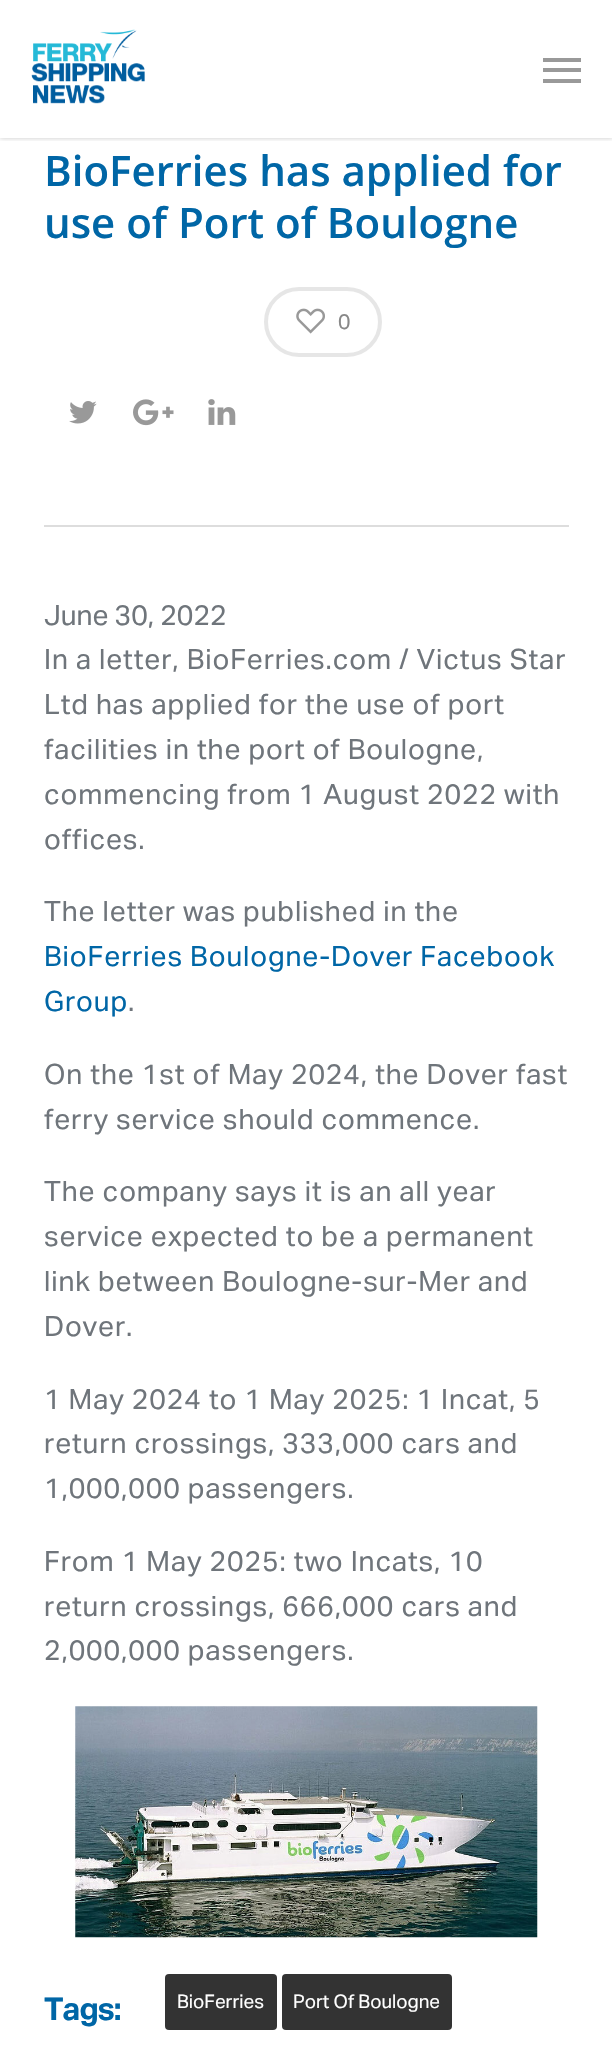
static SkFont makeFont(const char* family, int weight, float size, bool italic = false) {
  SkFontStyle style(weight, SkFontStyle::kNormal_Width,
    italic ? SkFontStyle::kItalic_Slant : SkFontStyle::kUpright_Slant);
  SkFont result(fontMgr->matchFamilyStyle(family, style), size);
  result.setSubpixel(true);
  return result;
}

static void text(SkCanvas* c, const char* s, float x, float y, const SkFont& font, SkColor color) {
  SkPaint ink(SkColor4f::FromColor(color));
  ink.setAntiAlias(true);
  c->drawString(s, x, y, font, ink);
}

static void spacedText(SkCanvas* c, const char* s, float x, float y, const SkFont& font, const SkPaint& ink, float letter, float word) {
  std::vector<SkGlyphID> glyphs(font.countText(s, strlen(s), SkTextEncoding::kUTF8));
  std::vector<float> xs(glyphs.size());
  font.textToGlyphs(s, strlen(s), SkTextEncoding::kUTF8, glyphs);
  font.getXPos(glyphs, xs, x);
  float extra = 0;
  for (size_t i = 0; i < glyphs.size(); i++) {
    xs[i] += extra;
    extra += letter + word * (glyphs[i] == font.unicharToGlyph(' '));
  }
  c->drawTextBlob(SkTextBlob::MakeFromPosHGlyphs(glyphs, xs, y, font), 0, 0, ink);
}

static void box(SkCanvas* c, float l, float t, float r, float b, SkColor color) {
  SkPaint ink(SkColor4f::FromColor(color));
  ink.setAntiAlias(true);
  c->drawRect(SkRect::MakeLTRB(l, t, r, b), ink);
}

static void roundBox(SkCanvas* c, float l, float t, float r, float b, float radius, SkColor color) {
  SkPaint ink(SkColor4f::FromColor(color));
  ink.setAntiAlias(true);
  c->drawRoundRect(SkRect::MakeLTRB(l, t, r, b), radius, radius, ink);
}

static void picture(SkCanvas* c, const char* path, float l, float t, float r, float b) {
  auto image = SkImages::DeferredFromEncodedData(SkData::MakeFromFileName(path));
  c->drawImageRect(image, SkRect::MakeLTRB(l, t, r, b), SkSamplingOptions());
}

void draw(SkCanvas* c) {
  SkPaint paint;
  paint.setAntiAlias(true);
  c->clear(0xffffffff);
  c->save();
  c->clipRect(SkRect::MakeLTRB(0, 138, 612, 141));
  paint.setColor(0x38000000);
  paint.setMaskFilter(SkMaskFilter::MakeBlur(kNormal_SkBlurStyle, 2.5f));
  c->drawRect(SkRect::MakeLTRB(0, 0, 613, 138), paint);
  paint.setMaskFilter(nullptr);
  c->restore();
  picture(c, "img_01.png", 31, 29, 145, 104);
  box(c, 543, 58, 581, 62, 0xff999999);
  box(c, 543, 79, 581, 83, 0xff999999);
  box(c, 543, 68, 581, 72, 0xff999999);
  box(c, 44, 525, 569, 527, 0xffdddddd);
  SkFont face1 = makeFont("Open Sans", 600, 42);
  text(c, "BioFerries has applied for", 44, 186, face1, 0xff0066a6);
  text(c, "use of Port of Boulogne", 44, 238, face1, 0xff0066a6);
  paint.setStyle(SkPaint::kStroke_Style);
  paint.setStrokeWidth(4);
  paint.setColor(0xffe6e6e6);
  c->drawRoundRect(SkRect::MakeLTRB(266, 289, 380, 355), 33, 33, paint);
  picture(c, "img_02.png", 296, 308, 325, 334);
  SkFont face2 = makeFont("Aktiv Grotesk", 400, 21);
  text(c, "0", 338, 329, face2, 0xff888888);
  picture(c, "img_03.png", 69, 401, 97, 424);
  picture(c, "img_04.png", 133, 399, 174, 426);
  picture(c, "img_05.png", 208, 399, 236, 425);
  SkFont face3 = makeFont("Aktiv Grotesk", 400, 28);
  text(c, "June 30, 2022", 44, 625, face3, 0xff6f757b);
  paint.setStyle(SkPaint::kFill_Style);
  paint.setColor(0xff6f757b);
  spacedText(c, "In a letter, BioFerries.com / Victus Star", 44, 669, face3, paint, 0.9f, 0);
  spacedText(c, "Ltd has applied for the use of port", 44, 714, face3, paint, 0.9f, 0);
  spacedText(c, "facilities in the port of Boulogne,", 44, 759, face3, paint, 0.9f, 0);
  spacedText(c, "commencing from 1 August 2022 with", 44, 804, face3, paint, 0.9f, 0);
  spacedText(c, "offices.", 44, 849, face3, paint, 0.9f, 0);
  spacedText(c, "The letter was published in the", 44, 921, face3, paint, 0.9f, 0);
  paint.setColor(0xff0066a6);
  spacedText(c, "BioFerries Boulogne-Dover Facebook", 44, 966, face3, paint, 0.9f, 0);
  spacedText(c, "Group", 44, 1011, face3, paint, 0.9f, 0);
  paint.setColor(0xff6f757b);
  spacedText(c, ".", 128, 1011, face3, paint, 0.9f, 0);
  spacedText(c, "On the 1st of May 2024, the Dover fast", 44, 1084, face3, paint, 0.9f, 0);
  spacedText(c, "ferry service should commence.", 44, 1129, face3, paint, 0.9f, 0);
  spacedText(c, "The company says it is an all year", 44, 1201, face3, paint, 0.9f, 0);
  spacedText(c, "service expected to be a permanent", 44, 1246, face3, paint, 0.9f, 0);
  spacedText(c, "link between Boulogne-sur-Mer and", 44, 1291, face3, paint, 0.9f, 0);
  spacedText(c, "Dover.", 44, 1336, face3, paint, 0.9f, 0);
  spacedText(c, "1 May 2024 to 1 May 2025: 1 Incat, 5", 44, 1409, face3, paint, 0.9f, 0);
  spacedText(c, "return crossings, 333,000 cars and", 44, 1453, face3, paint, 0.9f, 0);
  spacedText(c, "1,000,000 passengers.", 44, 1498, face3, paint, 0.9f, 0);
  spacedText(c, "From 1 May 2025: two Incats, 10", 44, 1571, face3, paint, 0.9f, 0);
  spacedText(c, "return crossings, 666,000 cars and", 44, 1616, face3, paint, 0.9f, 0);
  spacedText(c, "2,000,000 passengers.", 44, 1660, face3, paint, 0.9f, 0);
  picture(c, "img_06.png", 75, 1706, 538, 1938);
  SkFont face4 = makeFont("Aktiv Grotesk", 700, 31.5f);
  paint.setColor(0xff0066a6);
  spacedText(c, "Tags:", 44, 2020, face4, paint, -1, 0);
  roundBox(c, 165, 1974, 277, 2030, 4, 0xff333333);
  SkFont face5 = makeFont("Aktiv Grotesk", 400, 18.75f);
  text(c, "BioFerries", 177, 2008, face5, 0xffffffff);
  roundBox(c, 282, 1974, 452, 2030, 4, 0xff333333);
  text(c, "Port Of Boulogne", 293, 2008, face5, 0xffffffff);
}
